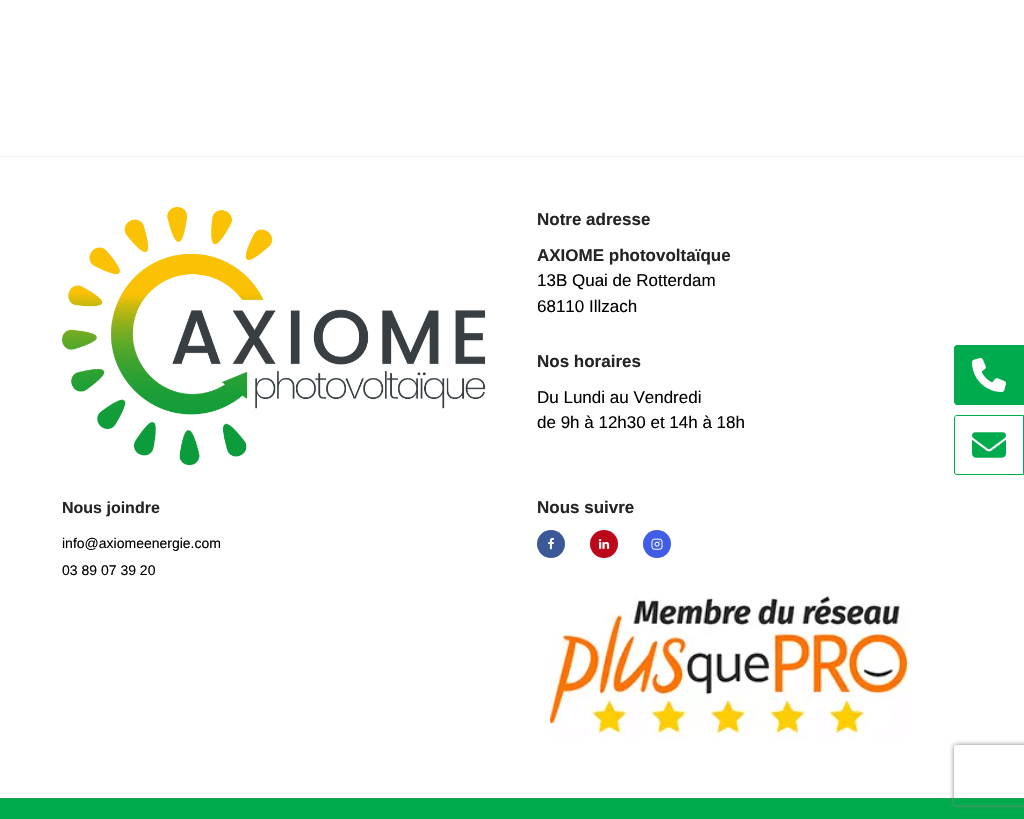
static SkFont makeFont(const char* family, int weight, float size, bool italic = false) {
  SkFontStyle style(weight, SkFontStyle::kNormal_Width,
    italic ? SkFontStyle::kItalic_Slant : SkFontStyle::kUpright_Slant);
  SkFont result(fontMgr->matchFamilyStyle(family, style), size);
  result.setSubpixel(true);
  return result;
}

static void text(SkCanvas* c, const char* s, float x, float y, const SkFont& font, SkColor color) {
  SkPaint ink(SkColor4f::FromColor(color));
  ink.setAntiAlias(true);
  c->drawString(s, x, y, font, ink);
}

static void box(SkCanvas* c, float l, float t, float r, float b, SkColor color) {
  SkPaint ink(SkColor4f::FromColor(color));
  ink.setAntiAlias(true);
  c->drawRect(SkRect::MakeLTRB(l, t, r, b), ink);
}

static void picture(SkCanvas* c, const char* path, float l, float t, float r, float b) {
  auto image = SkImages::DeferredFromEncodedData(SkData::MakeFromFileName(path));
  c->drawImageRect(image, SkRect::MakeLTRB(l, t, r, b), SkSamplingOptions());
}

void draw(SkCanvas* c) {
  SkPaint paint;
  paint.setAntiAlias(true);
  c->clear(0xffffffff);
  box(c, 0, 156, 1024, 157, 0xffefefef);
  picture(c, "img_01.png", 62, 207, 486, 465);
  SkFont face1 = makeFont("Liberation Sans", 700, 17);
  text(c, "Notre adresse", 537, 225, face1, 0xff242424);
  text(c, "AXIOME photovoltaïque", 537, 261, face1, 0xff242424);
  SkFont face2 = makeFont("Liberation Sans", 400, 17);
  text(c, "13B Quai de Rotterdam", 537, 286, face2, 0xff000000);
  text(c, "68110 Illzach", 537, 312, face2, 0xff000000);
  text(c, "Nos horaires", 537, 367, face1, 0xff242424);
  text(c, "Du Lundi au Vendredi", 537, 403, face2, 0xff000000);
  text(c, "de 9h à 12h30 et 14h à 18h", 537, 428, face2, 0xff000000);
  SkFont face3 = makeFont("Liberation Sans", 700, 16);
  text(c, "Nous joindre", 62, 513, face3, 0xff242424);
  SkFont face4 = makeFont("Liberation Sans", 400, 14);
  text(c, "info@axiomeenergie.com", 62, 548, face4, 0xff000000);
  text(c, "03 89 07 39 20", 62, 575, face4, 0xff000000);
  text(c, "Nous suivre", 537, 513, face1, 0xff242424);
  paint.setColor(0xff3b5998);
  c->drawCircle(551, 544, 14, paint);
  picture(c, "img_02.png", 548, 537, 554, 550);
  paint.setColor(0xffbd081c);
  c->drawCircle(604, 544, 14, paint);
  picture(c, "img_03.png", 598, 539, 610, 549);
  paint.setColor(0xff405de6);
  c->drawCircle(657, 544, 14, paint);
  picture(c, "img_04.png", 651, 538, 663, 550);
  picture(c, "img_05.png", 550, 594, 908, 739);
  box(c, 0, 799, 1024, 819, 0xff00ab4e);
  box(c, 0, 798, 1024, 799, 0xff1aa359);
  paint.setColor(0xff00ab4e);
  c->drawPath(SkPathBuilder().moveTo(957, 345).lineTo(1024, 345).lineTo(1024, 405).lineTo(957, 405).cubicTo(955.5f, 405, 954, 403.5f, 954, 402).lineTo(954, 348).cubicTo(954, 346.5f, 955.5f, 345, 957, 345).close().detach(), paint);
  picture(c, "img_06.png", 972, 358, 1006, 392);
  paint.setStyle(SkPaint::kStroke_Style);
  paint.setStrokeWidth(1);
  c->drawPath(SkPathBuilder().moveTo(957, 415.5f).lineTo(1023.5f, 415.5f).lineTo(1023.5f, 474.5f).lineTo(957, 474.5f).cubicTo(955.5f, 474.5f, 954.5f, 473.5f, 954.5f, 472).lineTo(954.5f, 418).cubicTo(954.5f, 416.5f, 955.5f, 415.5f, 957, 415.5f).close().detach(), paint);
  picture(c, "img_07.png", 972, 432, 1006, 458);
  c->save();
  c->clipPath(SkPathBuilder(SkPathFillType::kEvenOdd).moveTo(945, 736).lineTo(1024, 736).lineTo(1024, 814).lineTo(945, 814).close().moveTo(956, 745).lineTo(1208, 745).cubicTo(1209, 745, 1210, 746, 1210, 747).lineTo(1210, 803).cubicTo(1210, 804, 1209, 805, 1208, 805).lineTo(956, 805).cubicTo(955, 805, 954, 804, 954, 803).lineTo(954, 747).cubicTo(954, 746, 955, 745, 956, 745).close().detach(), true);
  paint.setStyle(SkPaint::kFill_Style);
  paint.setColor(0xff808080);
  paint.setMaskFilter(SkMaskFilter::MakeBlur(kNormal_SkBlurStyle, 2.5f));
  c->drawRoundRect(SkRect::MakeLTRB(954, 745, 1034, 805), 2, 2, paint);
  paint.setMaskFilter(nullptr);
  c->restore();
}
